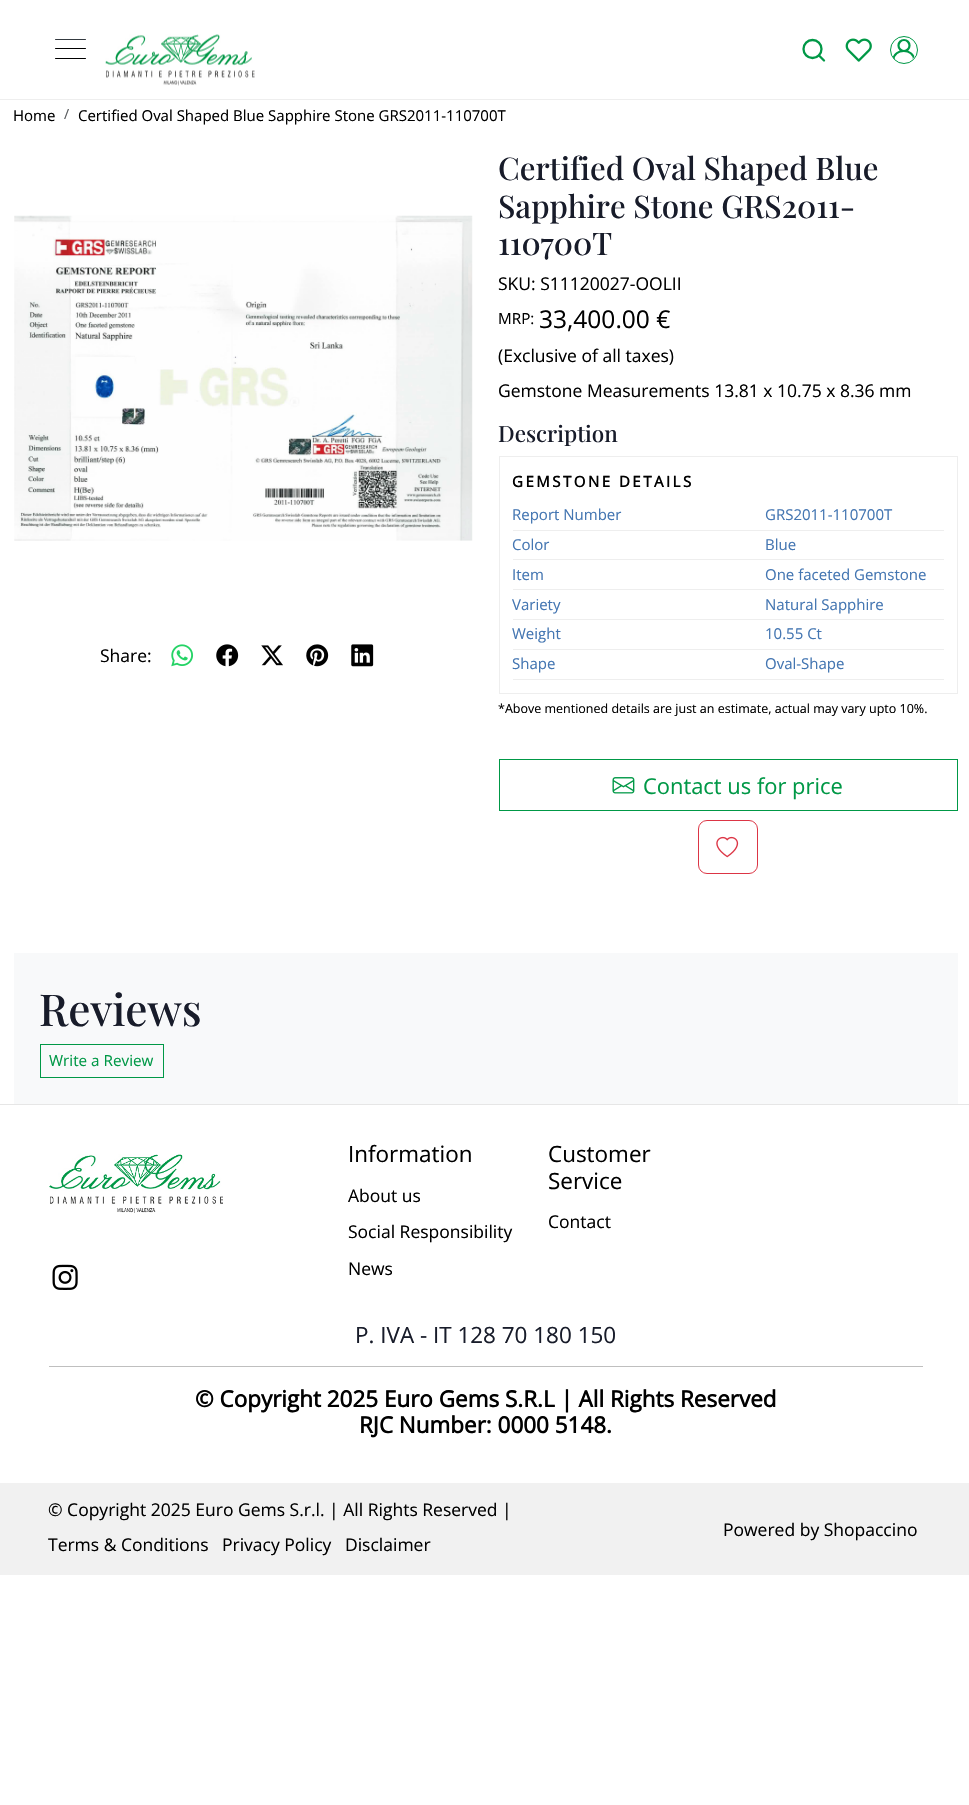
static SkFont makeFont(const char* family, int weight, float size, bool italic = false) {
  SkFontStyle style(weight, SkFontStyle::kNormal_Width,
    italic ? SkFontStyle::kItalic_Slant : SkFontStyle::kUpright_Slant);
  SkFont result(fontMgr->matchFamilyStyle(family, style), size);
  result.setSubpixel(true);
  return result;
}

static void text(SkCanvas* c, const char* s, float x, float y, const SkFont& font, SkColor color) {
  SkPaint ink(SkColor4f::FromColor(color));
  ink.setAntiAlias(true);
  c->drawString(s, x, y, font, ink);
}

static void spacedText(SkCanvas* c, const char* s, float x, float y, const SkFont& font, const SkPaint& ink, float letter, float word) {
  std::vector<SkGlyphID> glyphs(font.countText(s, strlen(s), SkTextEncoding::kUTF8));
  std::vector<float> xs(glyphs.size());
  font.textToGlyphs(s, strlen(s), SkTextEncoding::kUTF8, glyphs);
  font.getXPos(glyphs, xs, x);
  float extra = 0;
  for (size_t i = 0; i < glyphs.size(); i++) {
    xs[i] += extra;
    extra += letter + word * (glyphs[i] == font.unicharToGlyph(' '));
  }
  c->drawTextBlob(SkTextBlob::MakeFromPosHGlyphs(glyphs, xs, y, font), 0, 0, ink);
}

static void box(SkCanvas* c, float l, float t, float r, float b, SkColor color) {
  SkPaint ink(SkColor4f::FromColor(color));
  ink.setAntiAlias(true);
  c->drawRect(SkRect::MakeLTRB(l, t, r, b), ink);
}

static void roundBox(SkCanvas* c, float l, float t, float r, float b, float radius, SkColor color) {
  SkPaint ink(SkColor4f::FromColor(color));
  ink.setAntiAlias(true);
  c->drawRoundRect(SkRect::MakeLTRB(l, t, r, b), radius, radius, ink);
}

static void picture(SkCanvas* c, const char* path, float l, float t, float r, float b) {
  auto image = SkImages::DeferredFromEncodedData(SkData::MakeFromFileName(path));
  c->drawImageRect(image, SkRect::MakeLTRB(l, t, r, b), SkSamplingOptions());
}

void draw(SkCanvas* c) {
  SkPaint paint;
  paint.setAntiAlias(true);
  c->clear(0xffffffff);
  box(c, 0, 99, 969, 100, 0xffeeeeee);
  roundBox(c, 55, 58, 86, 59, 0.5f, 0xff000000);
  roundBox(c, 55, 48, 86, 49, 0.5f, 0xff000000);
  roundBox(c, 55, 39, 86, 40, 0.5f, 0xff343a40);
  picture(c, "img_01.png", 105, 34, 255, 86);
  paint.setStyle(SkPaint::kStroke_Style);
  paint.setStrokeWidth(2.3f);
  paint.setColor(0xff009846);
  c->drawCircle(812.5f, 49, 9, paint);
  paint.setStrokeCap(SkPaint::kRound_Cap);
  paint.setStrokeJoin(SkPaint::kRound_Join);
  c->drawPath(SkPathBuilder().moveTo(824, 60.5f).lineTo(819, 55.5f).detach(), paint);
  picture(c, "img_02.png", 845, 38, 872, 62);
  paint.setStrokeWidth(1);
  paint.setStrokeCap(SkPaint::kButt_Cap);
  paint.setStrokeJoin(SkPaint::kMiter_Join);
  c->drawCircle(904, 50, 13.5f, paint);
  c->save();
  c->clipPath(SkPathBuilder().moveTo(903.5f, 38).cubicTo(910.5f, 38, 916, 43.5f, 916, 50.5f).cubicTo(916, 57.5f, 910.5f, 63, 903.5f, 63).cubicTo(896.5f, 63, 891, 57.5f, 891, 50.5f).cubicTo(891, 43.5f, 896.5f, 38, 903.5f, 38).close().detach(), true);
  paint.setStrokeWidth(2.2f);
  paint.setStrokeCap(SkPaint::kSquare_Cap);
  c->drawPath(SkPathBuilder().moveTo(893.5f, 60).cubicTo(893.5f, 48, 914, 48, 914, 60).detach(), paint);
  c->restore();
  paint.setStrokeCap(SkPaint::kButt_Cap);
  c->drawCircle(904, 45.5f, 5.5f, paint);
  SkFont face1 = makeFont("Open Sans", 400, 15);
  text(c, "Home", 13, 121, face1, 0xff000000);
  SkFont face2 = makeFont("Open Sans", 400, 14);
  text(c, "/", 64, 119, face2, 0xff595c5f);
  text(c, "Certified Oval Shaped Blue Sapphire Stone GRS2011-110700T", 78, 121, face1, 0xff000000);
  picture(c, "img_03.png", 14, 215, 473, 541);
  SkFont face3 = makeFont("Open Sans", 400, 17.5f);
  text(c, "Share:", 100, 662, face3, 0xff000000);
  picture(c, "img_04.png", 171, 644, 194, 667);
  picture(c, "img_05.png", 216, 644, 239, 667);
  picture(c, "img_06.png", 261, 645, 283, 666);
  picture(c, "img_07.png", 306, 644, 329, 667);
  picture(c, "img_08.png", 351, 644, 374, 667);
  SkFont face4 = makeFont("Playfair Display", 500, 31.25f);
  text(c, "Certified Oval Shaped Blue", 498, 180, face4, 0xff181c2a);
  text(c, "Sapphire Stone GRS2011-", 498, 218, face4, 0xff181c2a);
  text(c, "110700T", 498, 255, face4, 0xff181c2a);
  text(c, "SKU: S11120027-OOLII", 498, 290, face3, 0xff000000);
  SkFont face5 = makeFont("Open Sans", 400, 15.25f);
  text(c, "MRP:", 498, 324, face5, 0xff000000);
  SkFont face6 = makeFont("Open Sans", 400, 24.5f);
  text(c, "33,400.00 €", 539, 328, face6, 0xff000000);
  text(c, "(Exclusive of all taxes)", 498, 362, face3, 0xff000000);
  text(c, "Gemstone Measurements 13.81 x 10.75 x 8.36 mm", 498, 397, face3, 0xff000000);
  SkFont face7 = makeFont("Playfair Display", 500, 22.45f);
  text(c, "Description", 498, 442, face7, 0xff181c2a);
  paint.setStrokeWidth(1);
  paint.setColor(0xffeeeeee);
  c->drawRect(SkRect::MakeLTRB(499.5f, 456.5f, 957.5f, 693.5f), paint);
  SkFont face8 = makeFont("Open Sans", 700, 15);
  paint.setStyle(SkPaint::kFill_Style);
  paint.setColor(0xff000000);
  spacedText(c, "GEMSTONE DETAILS", 512, 487, face8, paint, 2.5f, 0);
  box(c, 513, 530, 944, 531, 0xffeeeeee);
  text(c, "Report Number", 512, 520, face1, 0xff4476b2);
  text(c, "GRS2011-110700T", 765, 520, face1, 0xff4476b2);
  box(c, 513, 559, 944, 560, 0xffeeeeee);
  text(c, "Color", 512, 550, face1, 0xff4476b2);
  text(c, "Blue", 765, 550, face1, 0xff4476b2);
  box(c, 513, 589, 944, 590, 0xffeeeeee);
  text(c, "Item", 512, 580, face1, 0xff4476b2);
  text(c, "One faceted Gemstone", 765, 580, face1, 0xff4476b2);
  box(c, 513, 619, 944, 620, 0xffeeeeee);
  text(c, "Variety", 512, 610, face1, 0xff4476b2);
  text(c, "Natural Sapphire", 765, 610, face1, 0xff4476b2);
  box(c, 513, 649, 944, 650, 0xffeeeeee);
  text(c, "Weight", 512, 639, face1, 0xff4476b2);
  text(c, "10.55 Ct", 765, 639, face1, 0xff4476b2);
  box(c, 513, 679, 944, 680, 0xffeeeeee);
  text(c, "Shape", 512, 669, face1, 0xff4476b2);
  text(c, "Oval-Shape", 765, 669, face1, 0xff4476b2);
  SkFont face9 = makeFont("Open Sans", 400, 12.5f);
  text(c, "*Above mentioned details are just an estimate, actual may vary upto 10%.", 498, 713, face9, 0xff000000);
  paint.setStyle(SkPaint::kStroke_Style);
  paint.setColor(0xff009846);
  c->drawRect(SkRect::MakeLTRB(499.5f, 759.5f, 957.5f, 810.5f), paint);
  picture(c, "img_09.png", 612, 777, 635, 794);
  SkFont face10 = makeFont("Open Sans", 400, 21.9f);
  text(c, "Contact us for price", 643, 794, face10, 0xff009846);
  paint.setColor(0xffdc3545);
  c->drawRoundRect(SkRect::MakeLTRB(698.5f, 820.5f, 757.5f, 873.5f), 8.5f, 8.5f, paint);
  picture(c, "img_10.png", 716, 836, 739, 858);
  box(c, 14, 953, 958, 1104, 0xfff8f9fa);
  SkFont face11 = makeFont("Playfair Display", 500, 44);
  text(c, "Reviews", 39, 1026, face11, 0xff181c2a);
  paint.setColor(0xff009846);
  c->drawRect(SkRect::MakeLTRB(40.5f, 1044.5f, 163.5f, 1077.5f), paint);
  text(c, "Write a Review", 49, 1066, face5, 0xff009846);
  box(c, 0, 1104, 969, 1105, 0xffe6e6e6);
  picture(c, "img_11.png", 49, 1154, 223, 1213);
  picture(c, "img_12.png", 52, 1264, 78, 1290);
  SkFont face12 = makeFont("Open Sans", 400, 22.45f);
  text(c, "Information", 348, 1162, face12, 0xff000000);
  text(c, "About us", 348, 1202, face3, 0xff000000);
  text(c, "Social Responsibility", 348, 1238, face3, 0xff000000);
  text(c, "News", 348, 1275, face3, 0xff000000);
  text(c, "Customer", 548, 1162, face12, 0xff000000);
  text(c, "Service", 548, 1189, face12, 0xff000000);
  text(c, "Contact", 548, 1228, face3, 0xff000000);
  text(c, "P. IVA - IT 128 70 180 150", 355, 1343, face12, 0xff181c2a);
  box(c, 49, 1366, 923, 1367, 0xffbfbfbf);
  SkFont face13 = makeFont("Open Sans", 700, 22.45f);
  text(c, "© Copyright 2025 Euro Gems S.R.L | All Rights Reserved", 195, 1407, face13, 0xff000000);
  text(c, "RJC Number: 0000 5148.", 359, 1433, face13, 0xff000000);
  box(c, 0, 1483, 969, 1575, 0xfff1f1f1);
  text(c, "© Copyright 2025 Euro Gems S.r.l. | All Rights Reserved |", 48, 1516, face3, 0xff000000);
  text(c, "Terms & Conditions", 48, 1551, face3, 0xff000000);
  text(c, "Privacy Policy", 222, 1551, face3, 0xff000000);
  text(c, "Disclaimer", 345, 1551, face3, 0xff000000);
  text(c, "Powered by Shopaccino", 723, 1536, face3, 0xff000000);
}
